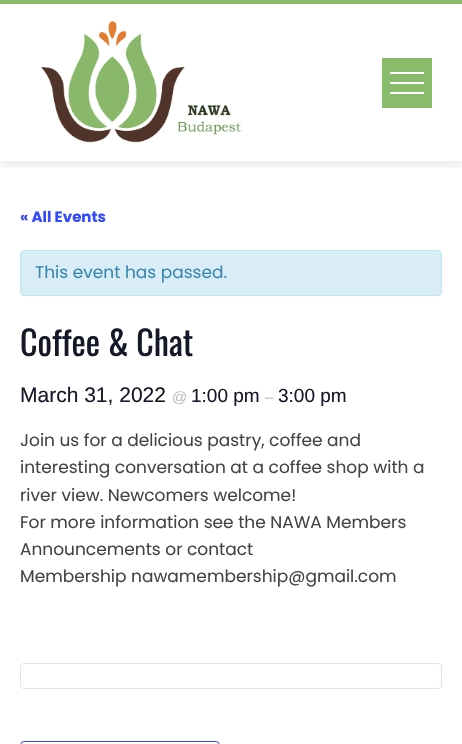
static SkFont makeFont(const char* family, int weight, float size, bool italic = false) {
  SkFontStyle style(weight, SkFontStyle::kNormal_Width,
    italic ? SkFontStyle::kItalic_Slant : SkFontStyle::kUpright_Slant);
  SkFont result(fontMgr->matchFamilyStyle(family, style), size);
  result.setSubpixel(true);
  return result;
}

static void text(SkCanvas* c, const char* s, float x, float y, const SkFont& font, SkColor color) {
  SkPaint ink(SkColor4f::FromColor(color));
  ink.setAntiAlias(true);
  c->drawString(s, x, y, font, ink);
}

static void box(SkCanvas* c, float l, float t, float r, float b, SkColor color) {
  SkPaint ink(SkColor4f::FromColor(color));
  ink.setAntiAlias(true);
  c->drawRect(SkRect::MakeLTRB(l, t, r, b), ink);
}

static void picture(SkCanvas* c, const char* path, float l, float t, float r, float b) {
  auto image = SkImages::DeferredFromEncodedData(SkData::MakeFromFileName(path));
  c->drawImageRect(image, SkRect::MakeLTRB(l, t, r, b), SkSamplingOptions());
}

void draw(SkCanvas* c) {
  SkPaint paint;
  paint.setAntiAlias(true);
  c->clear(0xffffffff);
  c->save();
  c->clipRect(SkRect::MakeLTRB(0, 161, 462, 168));
  paint.setColor(0x1a000000);
  paint.setMaskFilter(SkMaskFilter::MakeBlur(kNormal_SkBlurStyle, 5));
  c->drawRect(SkRect::MakeLTRB(0, 3, 462, 164), paint);
  paint.setMaskFilter(nullptr);
  c->restore();
  box(c, 0, 0, 462, 4, 0xff88bb6a);
  picture(c, "img_01.png", 40, 21, 242, 143);
  box(c, 382, 58, 432, 108, 0xff88bb6a);
  box(c, 390, 72, 424, 74, 0xffffffff);
  box(c, 390, 92, 424, 94, 0xffffffff);
  box(c, 390, 82, 424, 84, 0xffffffff);
  SkFont face1 = makeFont("Poppins", 700, 15);
  text(c, "« All Events", 20, 222, face1, 0xff334aff);
  paint.setColor(0xffd9edf7);
  c->drawRoundRect(SkRect::MakeLTRB(20.5f, 250.5f, 441.5f, 295.5f), 3.5f, 3.5f, paint);
  paint.setStyle(SkPaint::kStroke_Style);
  paint.setStrokeWidth(1);
  paint.setColor(0xffbce8f1);
  c->drawRoundRect(SkRect::MakeLTRB(20.5f, 250.5f, 441.5f, 295.5f), 3.5f, 3.5f, paint);
  SkFont face2 = makeFont("Poppins", 400, 17);
  text(c, "This event has passed.", 35, 278, face2, 0xff3a87ad);
  SkFont face3 = makeFont("Oswald", 400, 34);
  text(c, "Coffee & Chat", 20, 356, face3, 0xff141827);
  SkFont face4 = makeFont("Liberation Sans", 400, 21);
  text(c, "March 31, 2022", 20, 402, face4, 0xff141827);
  SkFont face5 = makeFont("Liberation Sans", 400, 15);
  text(c, "@", 172, 402, face5, 0xffb9bec2);
  SkFont face6 = makeFont("Liberation Sans", 400, 19);
  text(c, "1:00 pm", 191, 402, face6, 0xff141827);
  text(c, "–", 265, 402, face5, 0xffb9bec2);
  text(c, "3:00 pm", 278, 402, face6, 0xff141827);
  text(c, "Join us for a delicious pastry, coffee and", 20, 446, face2, 0xff444444);
  text(c, "interesting conversation at a coffee shop with a", 20, 473, face2, 0xff444444);
  text(c, "river view. Newcomers welcome!", 20, 501, face2, 0xff444444);
  text(c, "For more information see the NAWA Members", 20, 528, face2, 0xff444444);
  text(c, "Announcements or contact", 20, 555, face2, 0xff444444);
  text(c, "Membership nawamembership@gmail.com", 20, 582, face2, 0xff444444);
  paint.setColor(0xffe4e4e4);
  c->drawRoundRect(SkRect::MakeLTRB(20.5f, 663.5f, 441.5f, 688.5f), 3.5f, 3.5f, paint);
  paint.setColor(0xff334aff);
  c->drawRoundRect(SkRect::MakeLTRB(20.5f, 741.5f, 219.5f, 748.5f), 3.5f, 3.5f, paint);
}
